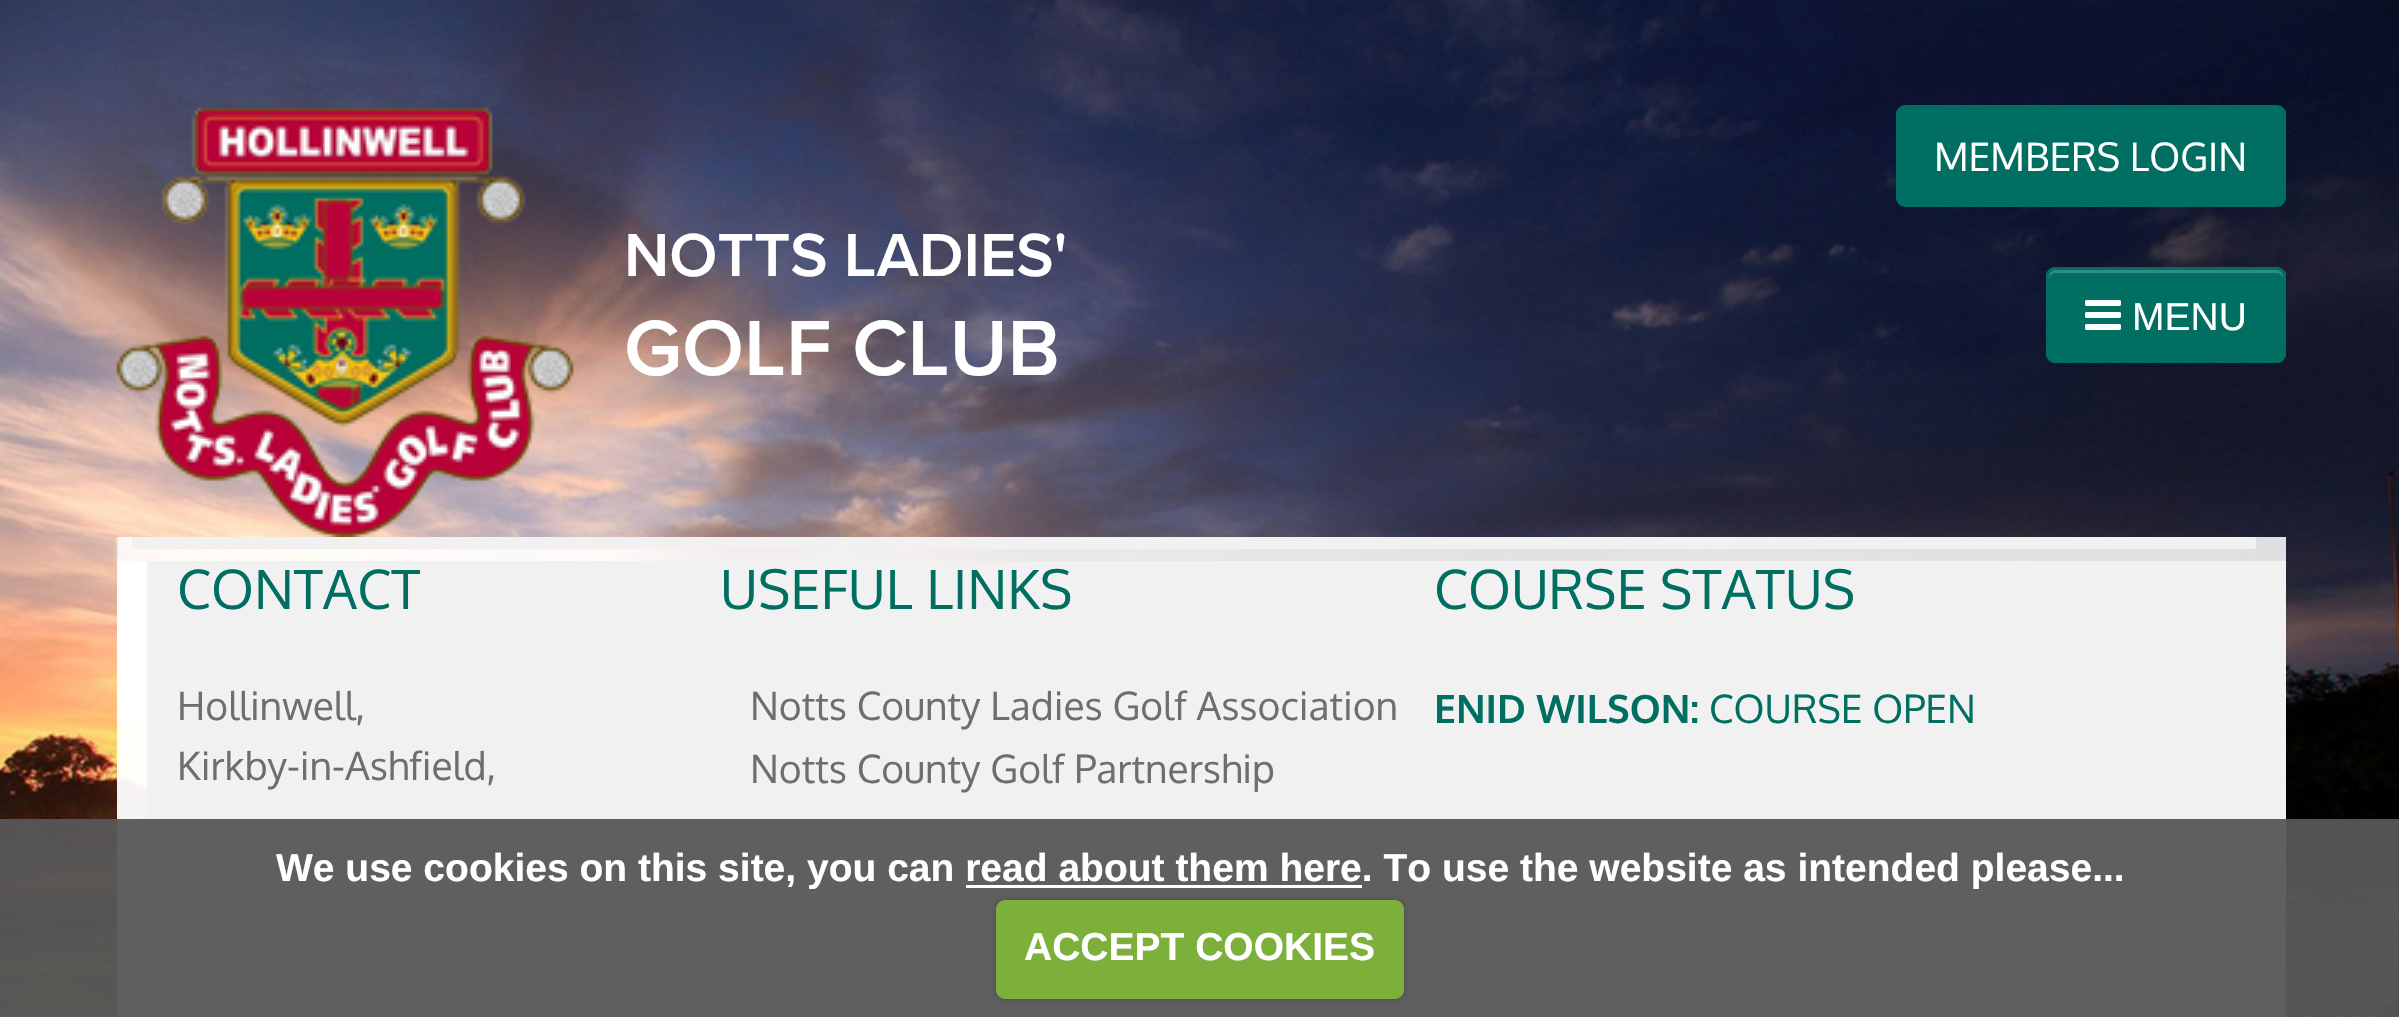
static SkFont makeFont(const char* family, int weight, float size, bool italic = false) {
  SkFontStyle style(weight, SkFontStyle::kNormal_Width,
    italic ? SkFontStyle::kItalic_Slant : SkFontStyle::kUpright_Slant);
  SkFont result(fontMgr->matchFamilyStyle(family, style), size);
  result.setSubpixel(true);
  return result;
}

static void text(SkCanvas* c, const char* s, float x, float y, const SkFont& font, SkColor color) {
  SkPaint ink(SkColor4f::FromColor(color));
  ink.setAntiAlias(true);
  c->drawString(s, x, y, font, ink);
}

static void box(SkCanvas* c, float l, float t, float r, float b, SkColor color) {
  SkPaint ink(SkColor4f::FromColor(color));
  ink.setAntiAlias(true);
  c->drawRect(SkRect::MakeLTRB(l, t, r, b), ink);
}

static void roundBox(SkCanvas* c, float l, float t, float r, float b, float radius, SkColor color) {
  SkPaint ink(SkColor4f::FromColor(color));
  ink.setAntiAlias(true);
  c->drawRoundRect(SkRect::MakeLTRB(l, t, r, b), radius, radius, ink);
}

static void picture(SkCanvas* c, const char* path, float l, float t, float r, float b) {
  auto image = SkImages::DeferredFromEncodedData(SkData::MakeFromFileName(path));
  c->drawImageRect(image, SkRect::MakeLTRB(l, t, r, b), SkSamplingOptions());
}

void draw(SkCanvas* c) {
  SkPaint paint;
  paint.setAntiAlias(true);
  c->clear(0xffffffff);
  picture(c, "img_01.png", 0, 0, 2399, 1017);
  paint.setColor(0xff006e61);
  c->drawRoundRect(SkRect::MakeLTRB(1897.5f, 106.5f, 2284.5f, 205.5f), 7.5f, 7.5f, paint);
  paint.setStyle(SkPaint::kStroke_Style);
  paint.setStrokeWidth(3);
  c->drawRoundRect(SkRect::MakeLTRB(1897.5f, 106.5f, 2284.5f, 205.5f), 7.5f, 7.5f, paint);
  SkFont face1 = makeFont("Oxygen", 400, 39);
  text(c, "MEMBERS LOGIN", 1934, 171, face1, 0xffffffff);
  picture(c, "img_02.png", 116, 107, 574, 537);
  SkFont face2 = makeFont("Proxima Nova", 600, 63);
  text(c, "NOTTS LADIES'", 624, 276, face2, 0xffffffff);
  SkFont face3 = makeFont("Proxima Nova", 600, 81);
  text(c, "GOLF CLUB", 624, 375, face3, 0xffffffff);
  roundBox(c, 2046, 267, 2286, 363, 9, 0xff006e61);
  paint.setStyle(SkPaint::kFill_Style);
  paint.setColor(0xff338b81);
  c->drawPath(SkPathBuilder().moveTo(2055, 273).lineTo(2277, 273).cubicTo(2280, 273, 2283, 276, 2283, 279).lineTo(2283, 276).cubicTo(2283, 273, 2280, 270, 2277, 270).lineTo(2055, 270).cubicTo(2052, 270, 2049, 273, 2049, 276).lineTo(2049, 279).cubicTo(2049, 276, 2052, 273, 2055, 273).close().detach(), paint);
  paint.setStyle(SkPaint::kStroke_Style);
  paint.setColor(0xff006e61);
  c->drawRoundRect(SkRect::MakeLTRB(2047.5f, 268.5f, 2284.5f, 361.5f), 7.5f, 7.5f, paint);
  picture(c, "img_03.png", 2085, 300, 2121, 330);
  SkFont face4 = makeFont("Liberation Sans", 400, 39);
  text(c, "MENU", 2132, 330, face4, 0xffffffff);
  picture(c, "img_04.png", 116, 537, 2286, 561);
  box(c, 132, 537, 2256, 549, 0xfff1f1f1);
  picture(c, "img_05.png", 117, 561, 2286, 1017);
  SkFont face5 = makeFont("Oxygen", 400, 54);
  text(c, "CONTACT", 177, 609, face5, 0xff006e61);
  text(c, "Hollinwell,", 177, 720, face1, 0xff6e6e6e);
  text(c, "Kirkby-in-Ashfield,", 177, 780, face1, 0xff6e6e6e);
  text(c, "USEFUL LINKS", 720, 609, face5, 0xff006e61);
  text(c, "Notts County Ladies Golf Association", 750, 720, face1, 0xff6e6e6e);
  text(c, "Notts County Golf Partnership", 750, 783, face1, 0xff6e6e6e);
  text(c, "COURSE STATUS", 1434, 609, face5, 0xff006e61);
  SkFont face6 = makeFont("Oxygen", 700, 39);
  text(c, "ENID WILSON:", 1434, 723, face6, 0xff006e61);
  text(c, "COURSE OPEN", 1709, 723, face1, 0xff006e61);
  box(c, 0, 819, 2399, 1017, 0xf2565656);
  SkFont face7 = makeFont("Liberation Sans", 700, 39);
  text(c, "We use cookies on this site, you can read about them here. To use the website as intended please...", 276, 881, face7, 0xffffffff);
  box(c, 966, 885, 1362, 888, 0xffffffff);
  paint.setStyle(SkPaint::kFill_Style);
  paint.setColor(0x40000000);
  paint.setMaskFilter(SkMaskFilter::MakeBlur(kNormal_SkBlurStyle, 3));
  c->drawRoundRect(SkRect::MakeLTRB(996, 900, 1404, 999), 9, 9, paint);
  paint.setMaskFilter(nullptr);
  roundBox(c, 996, 900, 1404, 999, 9, 0xff7daf3b);
  text(c, "ACCEPT COOKIES", 1024, 960, face7, 0xffffffff);
}
